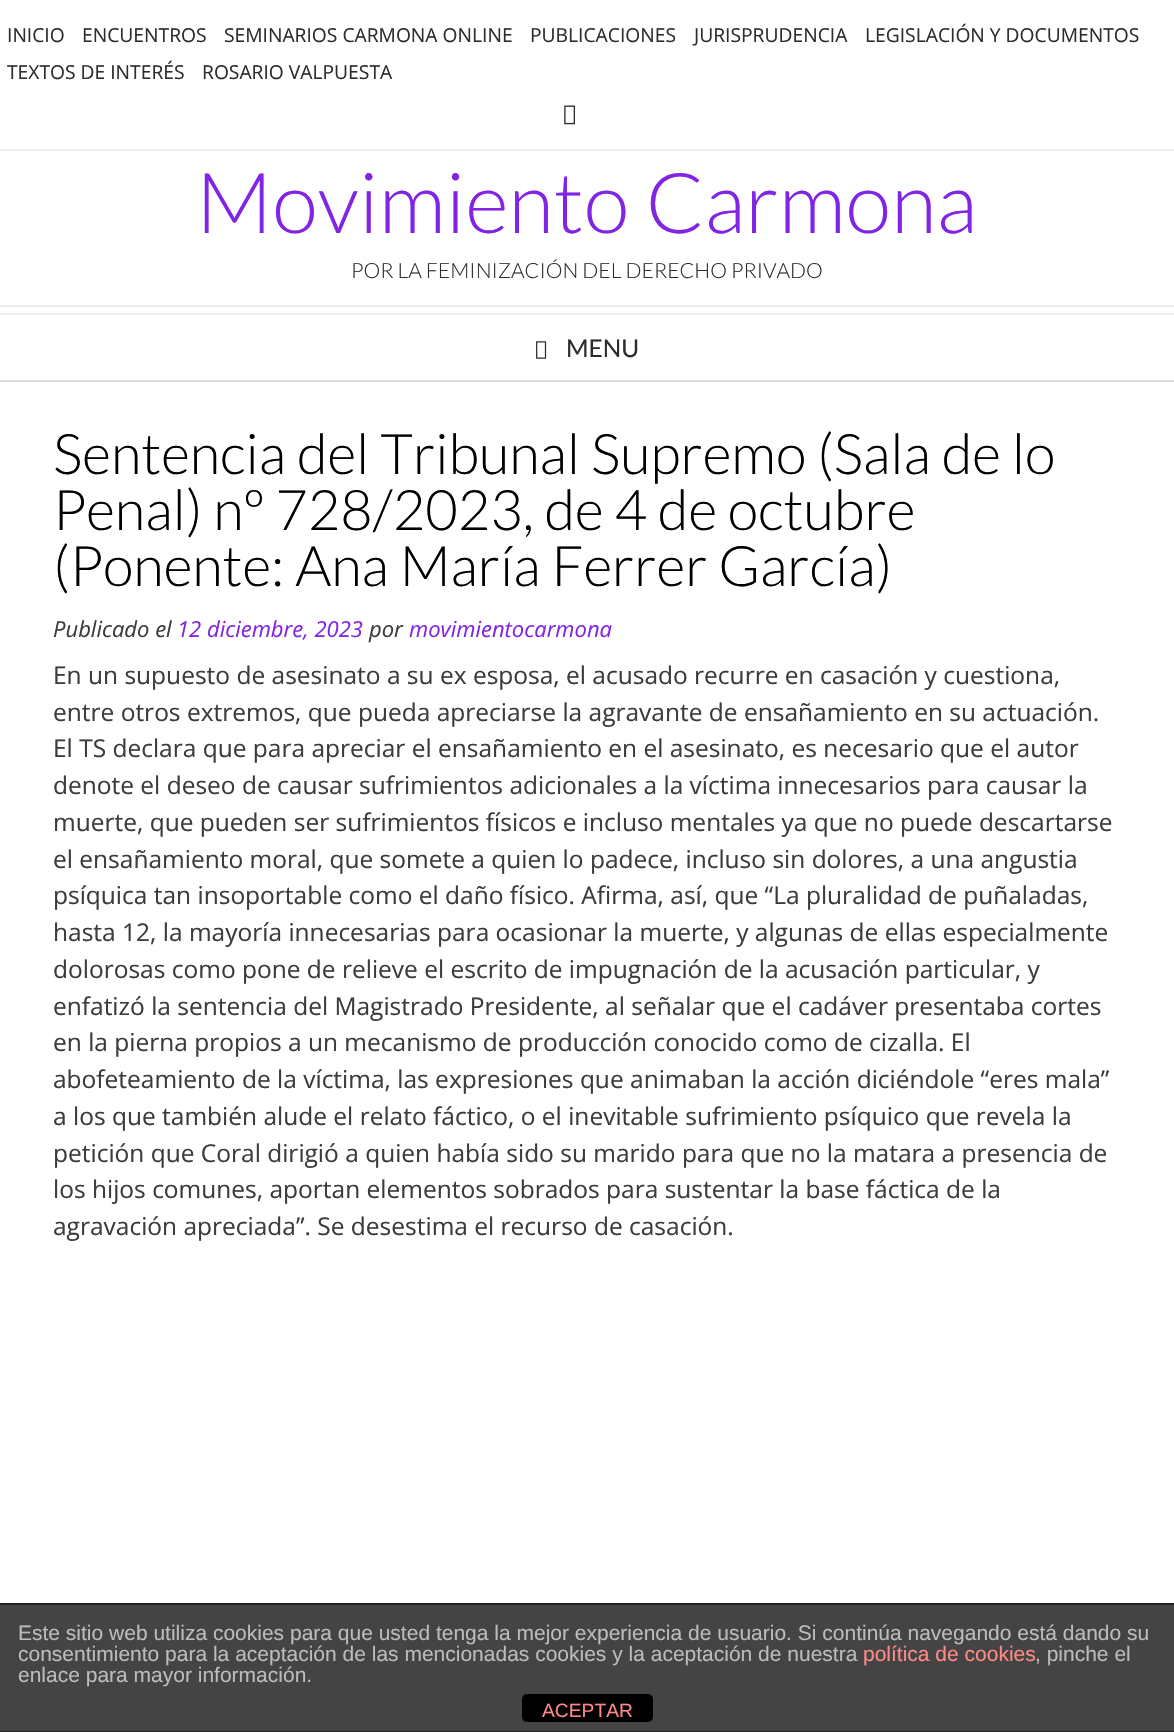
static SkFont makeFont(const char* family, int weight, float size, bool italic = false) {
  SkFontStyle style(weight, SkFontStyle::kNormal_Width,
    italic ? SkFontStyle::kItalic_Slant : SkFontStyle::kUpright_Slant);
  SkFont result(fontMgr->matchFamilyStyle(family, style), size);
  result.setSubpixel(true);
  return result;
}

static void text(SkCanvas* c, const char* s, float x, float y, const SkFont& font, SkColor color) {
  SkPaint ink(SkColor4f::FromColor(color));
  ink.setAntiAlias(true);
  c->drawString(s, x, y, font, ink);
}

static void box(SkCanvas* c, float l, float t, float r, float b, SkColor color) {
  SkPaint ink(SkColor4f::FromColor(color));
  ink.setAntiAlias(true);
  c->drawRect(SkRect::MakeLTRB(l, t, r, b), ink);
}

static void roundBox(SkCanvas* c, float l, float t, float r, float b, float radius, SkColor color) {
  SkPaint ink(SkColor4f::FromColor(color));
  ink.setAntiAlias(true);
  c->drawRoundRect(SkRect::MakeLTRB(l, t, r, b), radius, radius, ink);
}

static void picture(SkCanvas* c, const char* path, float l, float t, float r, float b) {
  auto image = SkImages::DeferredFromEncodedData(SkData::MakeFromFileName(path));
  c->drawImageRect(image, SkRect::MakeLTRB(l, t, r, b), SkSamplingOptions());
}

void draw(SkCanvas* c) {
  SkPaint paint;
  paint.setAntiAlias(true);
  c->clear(0xffffffff);
  box(c, 0, 380, 1174, 382, 0xffdbdbdb);
  box(c, 0, 149, 1174, 151, 0xffefefef);
  SkFont face1 = makeFont("Open Sans", 400, 19.25f);
  text(c, "INICIO", 7, 42, face1, 0xff2d2d2d);
  text(c, "ENCUENTROS", 82, 42, face1, 0xff2d2d2d);
  text(c, "SEMINARIOS CARMONA ONLINE", 224, 42, face1, 0xff2d2d2d);
  text(c, "PUBLICACIONES", 530, 42, face1, 0xff2d2d2d);
  text(c, "JURISPRUDENCIA", 694, 42, face1, 0xff2d2d2d);
  text(c, "LEGISLACIÓN Y DOCUMENTOS", 865, 42, face1, 0xff2d2d2d);
  text(c, "TEXTOS DE INTERÉS", 7, 79, face1, 0xff2d2d2d);
  text(c, "ROSARIO VALPUESTA", 202, 79, face1, 0xff2d2d2d);
  picture(c, "img_01.png", 564, 105, 575, 125);
  SkFont face2 = makeFont("Lato", 300, 84);
  text(c, "Movimiento Carmona", 196, 233, face2, 0xff8224e3);
  SkFont face3 = makeFont("Lato", 300, 21);
  text(c, "POR LA FEMINIZACIÓN DEL DERECHO PRIVADO", 351, 278, face3, 0xff2d2d2d);
  box(c, 0, 305, 1174, 307, 0xffebebeb);
  box(c, 0, 313, 1174, 315, 0xffefefef);
  picture(c, "img_02.png", 536, 341, 547, 359);
  SkFont face4 = makeFont("Lato", 400, 24.5f);
  text(c, "MENU", 566, 357, face4, 0xff2d2d2d);
  SkFont face5 = makeFont("Lato", 300, 56);
  text(c, "Sentencia del Tribunal Supremo (Sala de lo", 53, 474, face5, 0xff000000);
  text(c, "Penal) nº 728/2023, de 4 de octubre", 53, 530, face5, 0xff000000);
  text(c, "(Ponente: Ana María Ferrer García)", 53, 586, face5, 0xff000000);
  SkFont face6 = makeFont("Open Sans", 400, 22, true);
  text(c, "Publicado el", 53, 637, face6, 0xff3c3c3c);
  text(c, "12 diciembre, 2023", 177, 637, face6, 0xff8224e3);
  text(c, "por", 369, 637, face6, 0xff3c3c3c);
  text(c, "movimientocarmona", 409, 637, face6, 0xff8224e3);
  SkFont face7 = makeFont("Open Sans", 400, 24.5f);
  text(c, "En un supuesto de asesinato a su ex esposa, el acusado recurre en casación y cuestiona,", 53, 684, face7, 0xff3c3c3c);
  text(c, "entre otros extremos, que pueda apreciarse la agravante de ensañamiento en su actuación.", 53, 721, face7, 0xff3c3c3c);
  text(c, "El TS declara que para apreciar el ensañamiento en el asesinato, es necesario que el autor", 53, 757, face7, 0xff3c3c3c);
  text(c, "denote el deseo de causar sufrimientos adicionales a la víctima innecesarios para causar la", 53, 794, face7, 0xff3c3c3c);
  text(c, "muerte, que pueden ser sufrimientos físicos e incluso mentales ya que no puede descartarse", 53, 831, face7, 0xff3c3c3c);
  text(c, "el ensañamiento moral, que somete a quien lo padece, incluso sin dolores, a una angustia", 53, 868, face7, 0xff3c3c3c);
  text(c, "psíquica tan insoportable como el daño físico. Afirma, así, que “La pluralidad de puñaladas,", 53, 904, face7, 0xff3c3c3c);
  text(c, "hasta 12, la mayoría innecesarias para ocasionar la muerte, y algunas de ellas especialmente", 53, 941, face7, 0xff3c3c3c);
  text(c, "dolorosas como pone de relieve el escrito de impugnación de la acusación particular, y", 53, 978, face7, 0xff3c3c3c);
  text(c, "enfatizó la sentencia del Magistrado Presidente, al señalar que el cadáver presentaba cortes", 53, 1015, face7, 0xff3c3c3c);
  text(c, "en la pierna propios a un mecanismo de producción conocido como de cizalla. El", 53, 1051, face7, 0xff3c3c3c);
  text(c, "abofeteamiento de la víctima, las expresiones que animaban la acción diciéndole “eres mala”", 53, 1088, face7, 0xff3c3c3c);
  text(c, "a los que también alude el relato fáctico, o el inevitable sufrimiento psíquico que revela la", 53, 1125, face7, 0xff3c3c3c);
  text(c, "petición que Coral dirigió a quien había sido su marido para que no la matara a presencia de", 53, 1162, face7, 0xff3c3c3c);
  text(c, "los hijos comunes, aportan elementos sobrados para sustentar la base fáctica de la", 53, 1198, face7, 0xff3c3c3c);
  text(c, "agravación apreciada”. Se desestima el recurso de casación.", 53, 1235, face7, 0xff3c3c3c);
  box(c, 0, 1605, 1174, 1731, 0xff444444);
  box(c, 0, 1603, 1174, 1605, 0xff222222);
  box(c, 0, 1731, 1174, 1732, 0xff222222);
  SkFont face8 = makeFont("Liberation Sans", 400, 21);
  text(c, "Este sitio web utiliza cookies para que usted tenga la mejor experiencia de usuario. Si continúa navegando está dando su", 18, 1640, face8, 0xffbbbbbb);
  text(c, "consentimiento para la aceptación de las mencionadas cookies y la aceptación de nuestra", 18, 1661, face8, 0xffbbbbbb);
  text(c, "política de cookies", 863, 1661, face8, 0xffff8888);
  text(c, ", pinche el", 1035, 1661, face8, 0xffbbbbbb);
  text(c, "enlace para mayor información.", 18, 1682, face8, 0xffbbbbbb);
  roundBox(c, 522, 1694, 653, 1722, 5, 0xff000000);
  SkFont face9 = makeFont("Liberation Sans", 400, 19.25f);
  text(c, "ACEPTAR", 542, 1717, face9, 0xffff8888);
}
